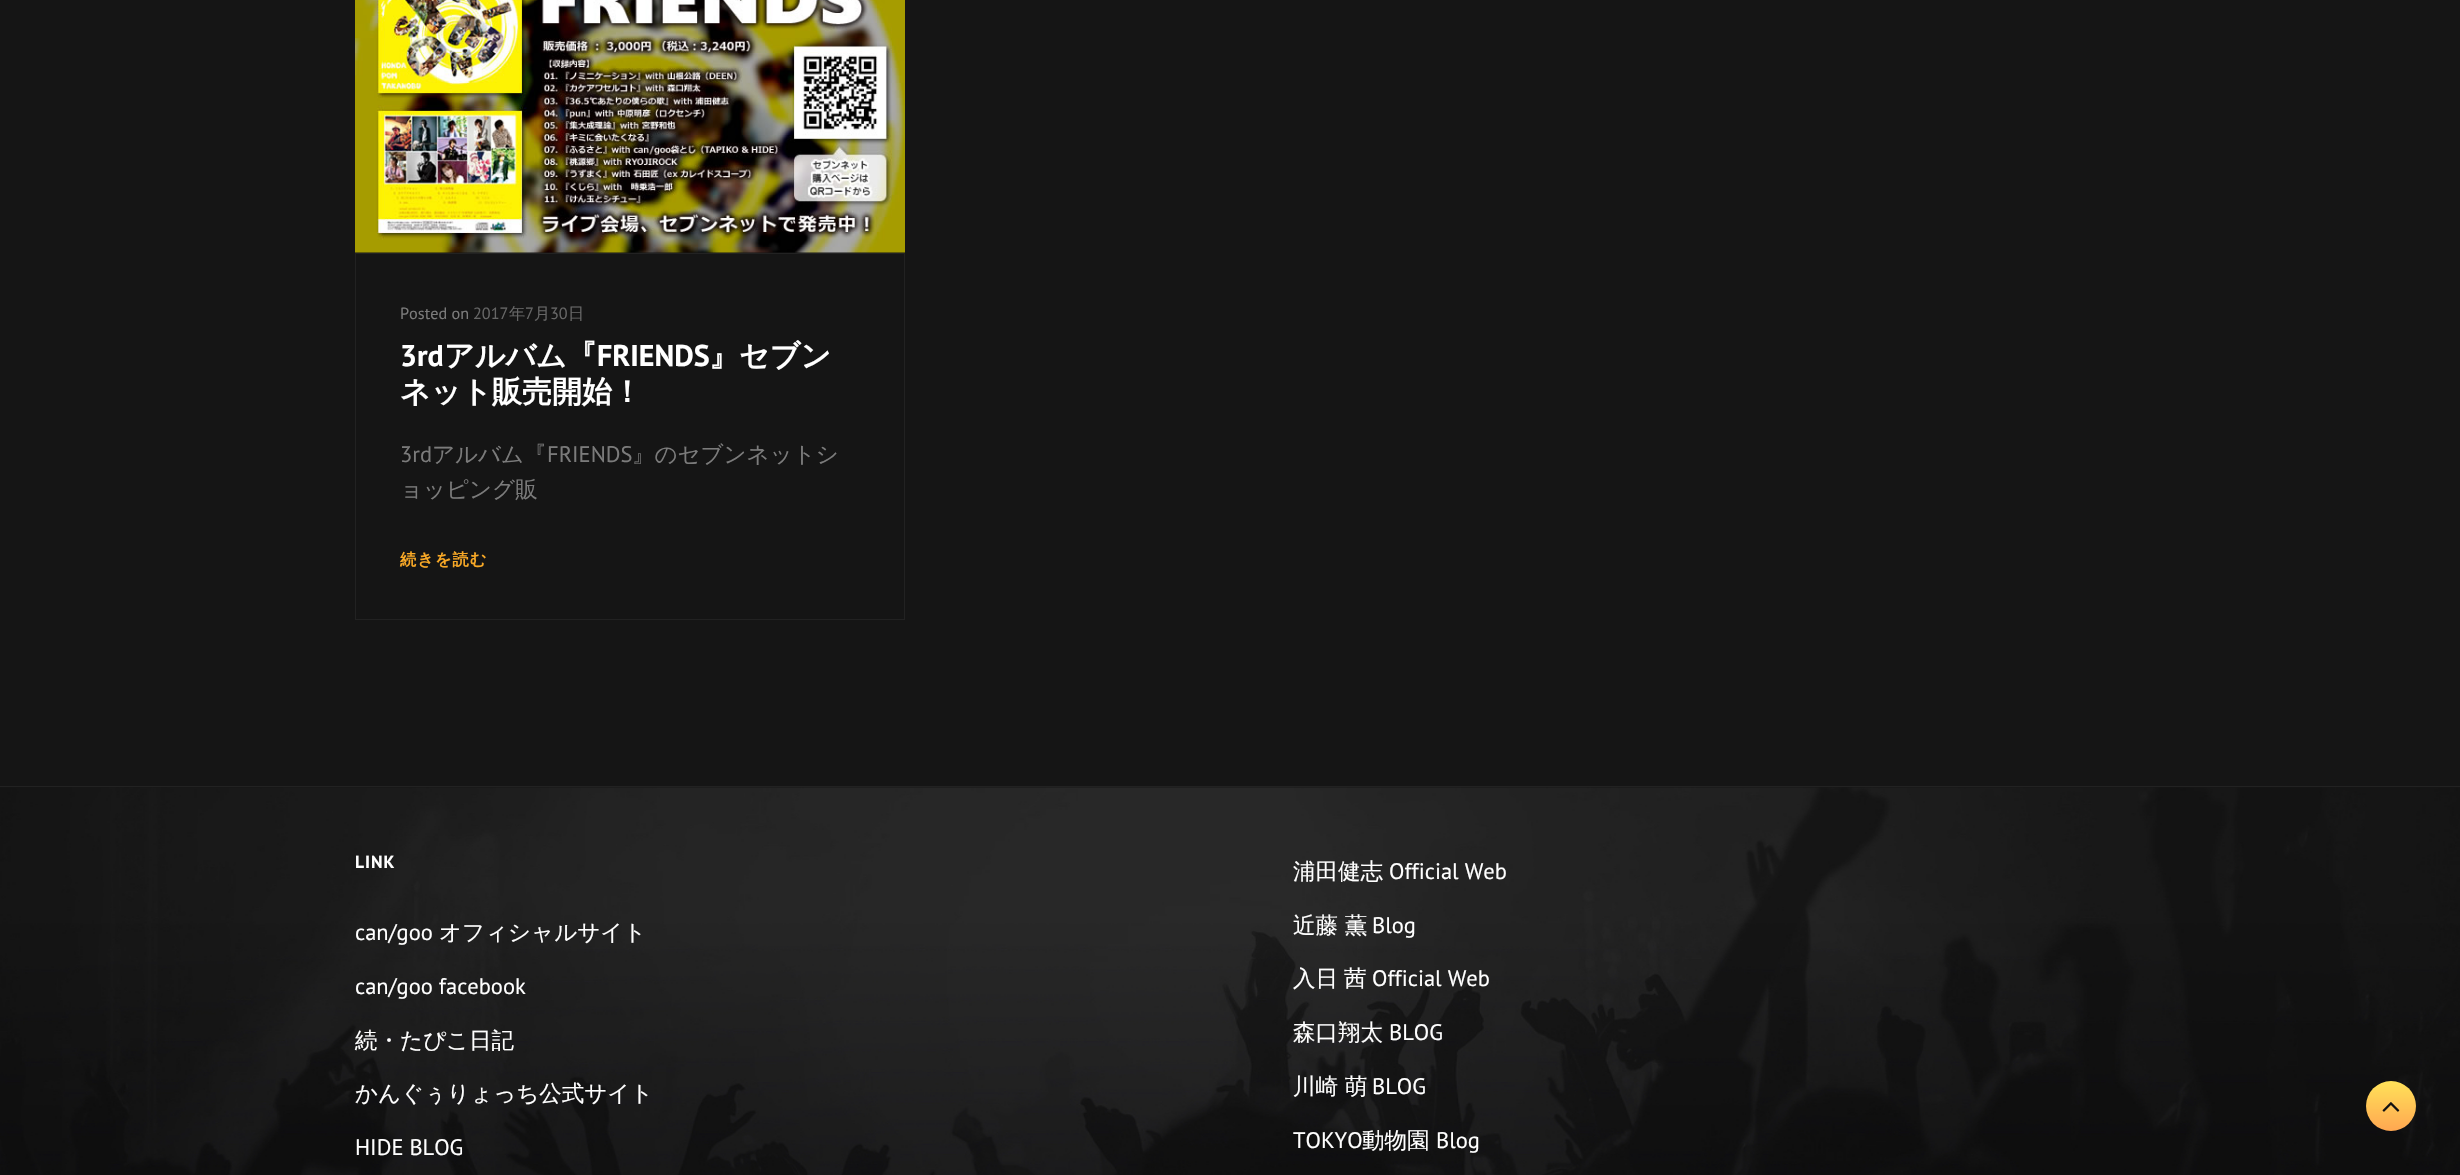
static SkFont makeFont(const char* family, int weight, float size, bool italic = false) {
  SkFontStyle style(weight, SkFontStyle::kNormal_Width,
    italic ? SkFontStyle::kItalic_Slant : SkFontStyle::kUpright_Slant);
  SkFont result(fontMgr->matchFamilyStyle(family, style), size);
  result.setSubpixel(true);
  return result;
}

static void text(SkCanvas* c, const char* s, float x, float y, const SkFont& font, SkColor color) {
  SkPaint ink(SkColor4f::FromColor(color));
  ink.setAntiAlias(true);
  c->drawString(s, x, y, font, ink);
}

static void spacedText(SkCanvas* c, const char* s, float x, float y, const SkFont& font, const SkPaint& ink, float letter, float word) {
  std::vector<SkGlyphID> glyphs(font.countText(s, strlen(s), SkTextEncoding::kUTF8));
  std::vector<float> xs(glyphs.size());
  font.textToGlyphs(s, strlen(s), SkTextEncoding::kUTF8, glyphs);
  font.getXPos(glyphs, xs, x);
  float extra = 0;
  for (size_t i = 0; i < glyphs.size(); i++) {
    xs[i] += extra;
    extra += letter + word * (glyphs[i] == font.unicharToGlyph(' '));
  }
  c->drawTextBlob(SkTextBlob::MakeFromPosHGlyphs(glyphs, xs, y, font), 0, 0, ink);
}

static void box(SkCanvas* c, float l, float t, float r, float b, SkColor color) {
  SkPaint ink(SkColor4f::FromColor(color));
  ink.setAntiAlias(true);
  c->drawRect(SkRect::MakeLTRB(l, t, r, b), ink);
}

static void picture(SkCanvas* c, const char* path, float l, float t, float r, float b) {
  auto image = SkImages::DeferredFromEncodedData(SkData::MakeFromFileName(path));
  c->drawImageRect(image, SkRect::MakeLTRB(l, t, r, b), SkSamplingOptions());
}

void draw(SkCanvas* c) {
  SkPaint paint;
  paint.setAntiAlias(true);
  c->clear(0xff151515);
  box(c, 0, 786, 2460, 787, 0xff222222);
  picture(c, "img_01.png", 355, 0, 905, 253);
  paint.setStyle(SkPaint::kStroke_Style);
  paint.setStrokeWidth(1);
  paint.setColor(0xff222222);
  c->drawRect(SkRect::MakeLTRB(355.5f, 253.5f, 904.5f, 619.5f), paint);
  SkFont face1 = makeFont("PT Sans", 400, 16.25f);
  text(c, "Posted on", 400, 319, face1, 0xff7b7b7b);
  text(c, "2017", 473, 319, face1, 0xff666666);
  SkFont face2 = makeFont("WenQuanYi Zen Hei", 500, 16.25f);
  text(c, "年", 509, 319, face2, 0xff666666);
  text(c, "7", 525, 319, face1, 0xff666666);
  text(c, "月", 534, 319, face2, 0xff666666);
  text(c, "30", 550, 319, face1, 0xff666666);
  text(c, "日", 568, 319, face2, 0xff666666);
  SkFont face3 = makeFont("PT Sans", 700, 30);
  text(c, "3rd", 400, 366, face3, 0xffffffff);
  SkFont face4 = makeFont("WenQuanYi Zen Hei", 700, 30);
  text(c, "アルバム『", 444, 366, face4, 0xffffffff);
  text(c, "FRIENDS", 597, 366, face3, 0xffffffff);
  text(c, "』セブン", 709, 366, face4, 0xffffffff);
  text(c, "ネット販売開始！", 400, 402, face4, 0xffffffff);
  SkFont face5 = makeFont("PT Sans", 400, 22.5f);
  text(c, "3rd", 400, 462, face5, 0xff7b7b7b);
  SkFont face6 = makeFont("WenQuanYi Zen Hei", 500, 22.5f);
  text(c, "アルバム『", 432, 462, face6, 0xff7b7b7b);
  text(c, "FRIENDS", 547, 462, face5, 0xff7b7b7b);
  text(c, "』のセブンネットシ", 632, 462, face6, 0xff7b7b7b);
  text(c, "ョッピング販", 400, 497, face6, 0xff7b7b7b);
  SkFont face7 = makeFont("WenQuanYi Zen Hei", 700, 16.25f);
  paint.setStyle(SkPaint::kFill_Style);
  paint.setColor(0xfff9a926);
  spacedText(c, "続きを読む", 400, 565, face7, paint, 1, 0);
  picture(c, "img_02.png", 0, 787, 2460, 1175);
  SkFont face8 = makeFont("PT Sans", 700, 17.5f);
  paint.setColor(0xffffffff);
  spacedText(c, "LINK", 355, 868, face8, paint, 1, 0);
  text(c, "can/goo", 355, 940, face5, 0xffffffff);
  text(c, "オフィシャルサイト", 439, 940, face6, 0xffffffff);
  text(c, "can/goo facebook", 355, 994, face5, 0xffffffff);
  text(c, "続・たぴこ日記", 355, 1048, face6, 0xffffffff);
  text(c, "かんぐぅりょっち公式サイト", 355, 1101, face6, 0xffffffff);
  text(c, "HIDE BLOG", 355, 1155, face5, 0xffffffff);
  text(c, "浦田健志", 1293, 879, face6, 0xffffffff);
  text(c, "Official Web", 1389, 879, face5, 0xffffffff);
  text(c, "近藤 薫", 1293, 933, face6, 0xffffffff);
  text(c, "Blog", 1372, 933, face5, 0xffffffff);
  text(c, "入日", 1293, 986, face6, 0xffffffff);
  text(c, "茜", 1344, 986, face6, 0xffffffff);
  text(c, "Official Web", 1372, 986, face5, 0xffffffff);
  text(c, "森口翔太", 1293, 1040, face6, 0xffffffff);
  text(c, "BLOG", 1389, 1040, face5, 0xffffffff);
  text(c, "川崎 萌", 1293, 1094, face6, 0xffffffff);
  text(c, "BLOG", 1372, 1094, face5, 0xffffffff);
  text(c, "TOKYO", 1293, 1148, face5, 0xffffffff);
  text(c, "動物園", 1362, 1148, face6, 0xffffffff);
  text(c, "Blog", 1436, 1148, face5, 0xffffffff);
  {
    const SkColor colors[] = {0xffffe259, 0xffffa751};
    const float stops[] = {0, 1};
    const SkPoint ends[] = {{2391, 1081}, {2391, 1131}};
    paint.setShader(SkGradientShader::MakeLinear(ends, colors, stops, 2, SkTileMode::kClamp));
    paint.setAlpha(255);
  }
  c->drawCircle(2391, 1106, 25, paint);
  picture(c, "img_03.png", 2382, 1102, 2400, 1112);
}
